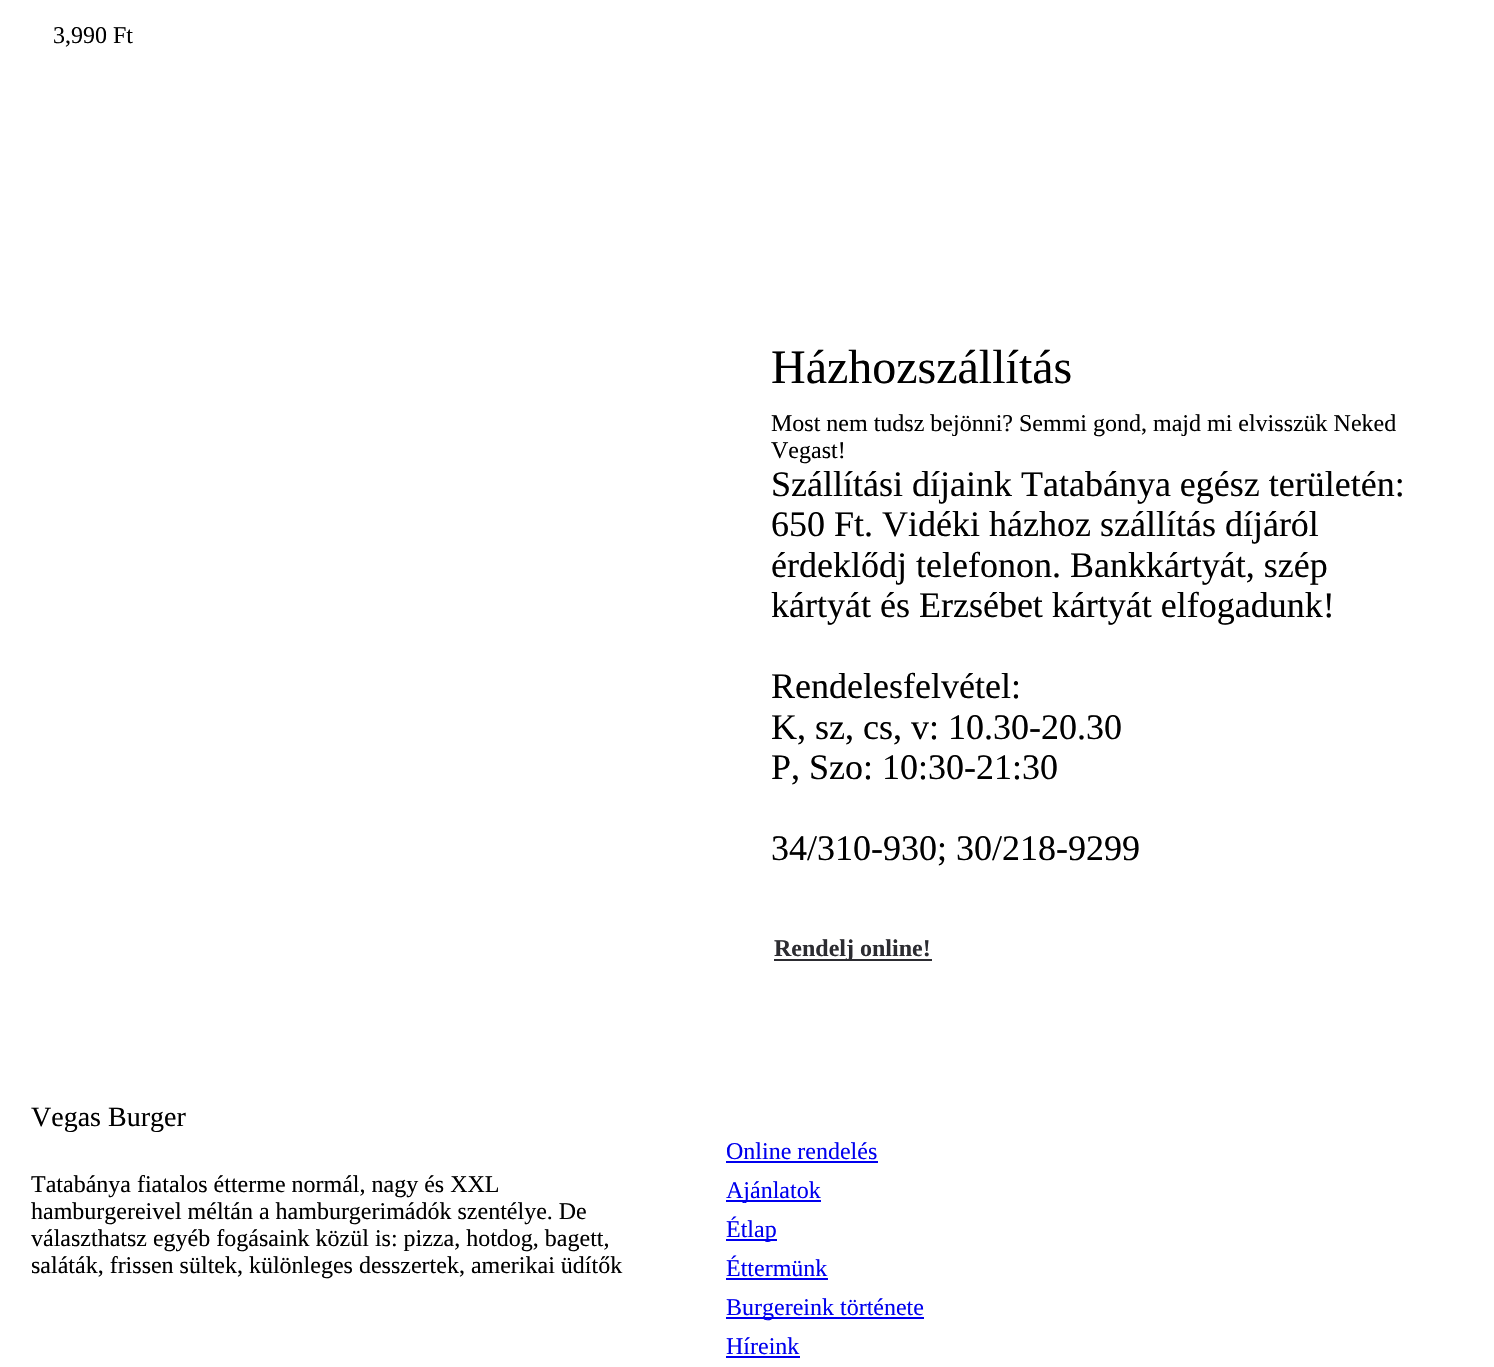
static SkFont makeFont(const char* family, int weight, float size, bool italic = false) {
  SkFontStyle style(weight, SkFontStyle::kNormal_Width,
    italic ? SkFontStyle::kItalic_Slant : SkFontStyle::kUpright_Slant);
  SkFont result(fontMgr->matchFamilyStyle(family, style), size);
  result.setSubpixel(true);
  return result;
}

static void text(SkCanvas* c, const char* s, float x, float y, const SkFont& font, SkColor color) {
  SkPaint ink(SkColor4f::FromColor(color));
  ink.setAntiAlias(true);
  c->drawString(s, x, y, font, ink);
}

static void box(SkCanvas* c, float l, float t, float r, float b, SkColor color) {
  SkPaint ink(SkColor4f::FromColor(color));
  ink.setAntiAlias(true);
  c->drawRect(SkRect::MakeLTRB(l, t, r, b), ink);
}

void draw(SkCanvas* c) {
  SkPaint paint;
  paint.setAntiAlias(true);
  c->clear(0xffffffff);
  SkFont face1 = makeFont("Liberation Serif", 400, 24);
  text(c, "3,990 Ft", 53, 43, face1, 0xff000000);
  SkFont face2 = makeFont("Liberation Serif", 400, 48);
  text(c, "Házhozszállítás", 771, 383, face2, 0xff000000);
  text(c, "Most nem tudsz bejönni? Semmi gond, majd mi elvisszük Neked", 771, 431, face1, 0xff000000);
  text(c, "Vegast!", 771, 458, face1, 0xff000000);
  SkFont face3 = makeFont("Liberation Serif", 400, 36);
  text(c, "Szállítási díjaink Tatabánya egész területén:", 771, 496, face3, 0xff000000);
  text(c, "650 Ft. Vidéki házhoz szállítás díjáról", 771, 536, face3, 0xff000000);
  text(c, "érdeklődj telefonon. Bankkártyát, szép", 771, 577, face3, 0xff000000);
  text(c, "kártyát és Erzsébet kártyát elfogadunk!", 771, 617, face3, 0xff000000);
  text(c, "Rendelesfelvétel:", 771, 698, face3, 0xff000000);
  text(c, "K, sz, cs, v: 10.30-20.30", 771, 739, face3, 0xff000000);
  text(c, "P, Szo: 10:30-21:30", 771, 779, face3, 0xff000000);
  text(c, "34/310-930; 30/218-9299", 771, 860, face3, 0xff000000);
  box(c, 774, 959, 932, 961, 0xff2c2c31);
  SkFont face4 = makeFont("Liberation Serif", 700, 24);
  text(c, "Rendelj online!", 774, 956, face4, 0xff2c2c31);
  SkFont face5 = makeFont("Liberation Serif", 400, 28);
  text(c, "Vegas Burger", 31, 1126, face5, 0xff000000);
  text(c, "Tatabánya fiatalos étterme normál, nagy és XXL", 31, 1192, face1, 0xff000000);
  text(c, "hamburgereivel méltán a hamburgerimádók szentélye. De", 31, 1219, face1, 0xff000000);
  text(c, "választhatsz egyéb fogásaink közül is: pizza, hotdog, bagett,", 31, 1246, face1, 0xff000000);
  text(c, "saláták, frissen sültek, különleges desszertek, amerikai üdítők", 31, 1273, face1, 0xff000000);
  text(c, "Online rendelés", 726, 1159, face1, 0xff0000ee);
  box(c, 726, 1161, 878, 1163, 0xff0000ee);
  box(c, 726, 1200, 821, 1202, 0xff0000ee);
  text(c, "Ajánlatok", 726, 1198, face1, 0xff0000ee);
  box(c, 726, 1239, 777, 1241, 0xff0000ee);
  text(c, "Étlap", 726, 1237, face1, 0xff0000ee);
  text(c, "Éttermünk", 726, 1276, face1, 0xff0000ee);
  box(c, 726, 1278, 828, 1280, 0xff0000ee);
  box(c, 726, 1317, 924, 1319, 0xff0000ee);
  text(c, "Burgereink története", 726, 1315, face1, 0xff0000ee);
  text(c, "Híreink", 726, 1354, face1, 0xff0000ee);
  box(c, 726, 1356, 800, 1358, 0xff0000ee);
}
